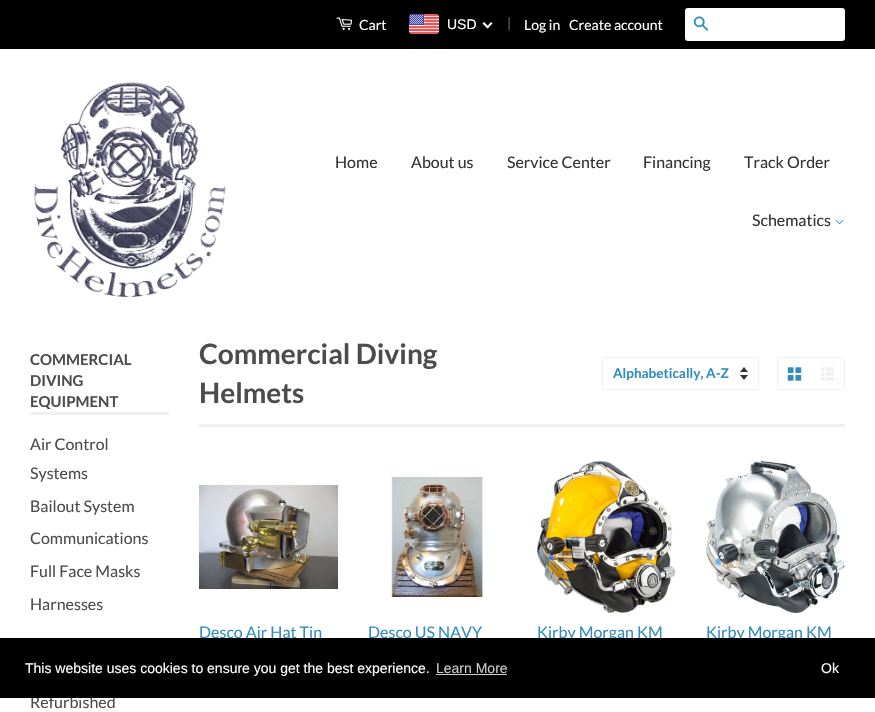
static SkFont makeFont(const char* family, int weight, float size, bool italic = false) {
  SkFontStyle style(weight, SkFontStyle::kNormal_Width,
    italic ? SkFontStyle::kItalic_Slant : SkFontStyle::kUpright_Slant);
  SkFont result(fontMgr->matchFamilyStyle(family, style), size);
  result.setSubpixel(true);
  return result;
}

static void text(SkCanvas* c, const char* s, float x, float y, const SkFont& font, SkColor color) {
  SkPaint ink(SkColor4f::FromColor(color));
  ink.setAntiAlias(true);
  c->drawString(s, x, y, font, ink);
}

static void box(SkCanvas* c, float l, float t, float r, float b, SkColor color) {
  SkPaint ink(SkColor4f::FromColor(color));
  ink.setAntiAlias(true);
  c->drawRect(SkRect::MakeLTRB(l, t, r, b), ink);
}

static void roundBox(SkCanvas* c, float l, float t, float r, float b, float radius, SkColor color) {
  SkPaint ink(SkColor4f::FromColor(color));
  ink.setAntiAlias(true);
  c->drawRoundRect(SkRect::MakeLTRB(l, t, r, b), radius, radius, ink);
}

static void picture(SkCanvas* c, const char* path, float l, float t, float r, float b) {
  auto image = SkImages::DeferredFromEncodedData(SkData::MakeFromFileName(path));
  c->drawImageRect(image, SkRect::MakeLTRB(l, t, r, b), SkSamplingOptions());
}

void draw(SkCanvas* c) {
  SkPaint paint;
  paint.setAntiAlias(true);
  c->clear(0xffffffff);
  box(c, 0, 0, 875, 49, 0xff000000);
  picture(c, "img_01.png", 336, 17, 352, 30);
  SkFont face1 = makeFont("Lato", 400, 14);
  text(c, "Cart", 359, 30, face1, 0xffffffff);
  picture(c, "img_02.png", 409, 14, 439, 34);
  SkFont face2 = makeFont("Liberation Sans", 400, 14);
  text(c, "USD", 447, 29, face2, 0xffffffff);
  paint.setColor(0xffffffff);
  c->drawPath(SkPathBuilder().moveTo(491, 22).lineTo(492.5f, 23.5f).lineTo(487.5f, 28.5f).lineTo(486.5f, 27).close().detach(), paint);
  c->drawPath(SkPathBuilder().moveTo(484, 22).lineTo(489, 27).lineTo(487.5f, 28.5f).lineTo(482.5f, 23.5f).close().detach(), paint);
  text(c, "|", 507, 28, face1, 0xff666666);
  text(c, "Log in", 524, 30, face1, 0xffffffff);
  text(c, "Create account", 569, 30, face1, 0xffffffff);
  roundBox(c, 685, 8, 845, 41, 3, 0xffffffff);
  picture(c, "img_03.png", 693, 16, 709, 31);
  picture(c, "img_04.png", 34, 82, 226, 297);
  SkFont face3 = makeFont("Lato", 400, 16);
  text(c, "Home", 335, 168, face3, 0xff333333);
  text(c, "About us", 411, 168, face3, 0xff333333);
  text(c, "Service Center", 507, 168, face3, 0xff333333);
  text(c, "Financing", 643, 168, face3, 0xff333333);
  text(c, "Track Order", 744, 168, face3, 0xff333333);
  text(c, "Schematics", 752, 226, face3, 0xff333333);
  picture(c, "img_05.png", 835, 219, 844, 225);
  box(c, 30, 412, 169, 415, 0xfff0f0f0);
  SkFont face4 = makeFont("Lato", 700, 15);
  text(c, "COMMERCIAL", 30, 365, face4, 0xff4c4c4c);
  text(c, "DIVING", 30, 386, face4, 0xff4c4c4c);
  text(c, "EQUIPMENT", 30, 407, face4, 0xff4c4c4c);
  text(c, "Air Control", 30, 450, face3, 0xff4c4c4c);
  text(c, "Systems", 30, 479, face3, 0xff4c4c4c);
  text(c, "Bailout System", 30, 512, face3, 0xff4c4c4c);
  text(c, "Communications", 30, 544, face3, 0xff4c4c4c);
  text(c, "Full Face Masks", 30, 577, face3, 0xff4c4c4c);
  text(c, "Harnesses", 30, 610, face3, 0xff4c4c4c);
  text(c, "Refurbished", 30, 708, face3, 0xff4c4c4c);
  box(c, 199, 424, 845, 427, 0xfff0f0f0);
  SkFont face5 = makeFont("Lato", 700, 28);
  text(c, "Commercial Diving", 199, 364, face5, 0xff4c4c4c);
  text(c, "Helmets", 199, 403, face5, 0xff4c4c4c);
  picture(c, "img_06.png", 740, 367, 748, 380);
  paint.setStyle(SkPaint::kStroke_Style);
  paint.setStrokeWidth(1);
  paint.setColor(0xfff0f0f0);
  c->drawRoundRect(SkRect::MakeLTRB(602.5f, 357.5f, 758.5f, 389.5f), 2.5f, 2.5f, paint);
  SkFont face6 = makeFont("Lato", 700, 13.5f);
  text(c, "Alphabetically, A-Z", 613, 378, face6, 0xff338dbc);
  c->drawRoundRect(SkRect::MakeLTRB(777.5f, 357.5f, 844.5f, 389.5f), 2.5f, 2.5f, paint);
  picture(c, "img_07.png", 787, 367, 802, 381);
  picture(c, "img_08.png", 821, 367, 834, 381);
  picture(c, "img_09.png", 199, 485, 338, 589);
  text(c, "Desco Air Hat Tin", 199, 638, face3, 0xff338dbc);
  picture(c, "img_10.png", 391, 477, 483, 597);
  text(c, "Desco US NAVY", 368, 638, face3, 0xff338dbc);
  picture(c, "img_11.png", 537, 461, 676, 613);
  text(c, "Kirby Morgan KM", 537, 638, face3, 0xff338dbc);
  picture(c, "img_12.png", 706, 461, 845, 613);
  text(c, "Kirby Morgan KM", 706, 638, face3, 0xff338dbc);
  box(c, 0, 638, 875, 698, 0xff000000);
  text(c, "This website uses cookies to ensure you get the best experience.", 25, 673, face2, 0xffffffff);
  text(c, "Learn More", 436, 673, face2, 0xffcccccc);
  box(c, 436, 674, 507, 675, 0xffcccccc);
  text(c, "Ok", 821, 673, face2, 0xffffffff);
}
